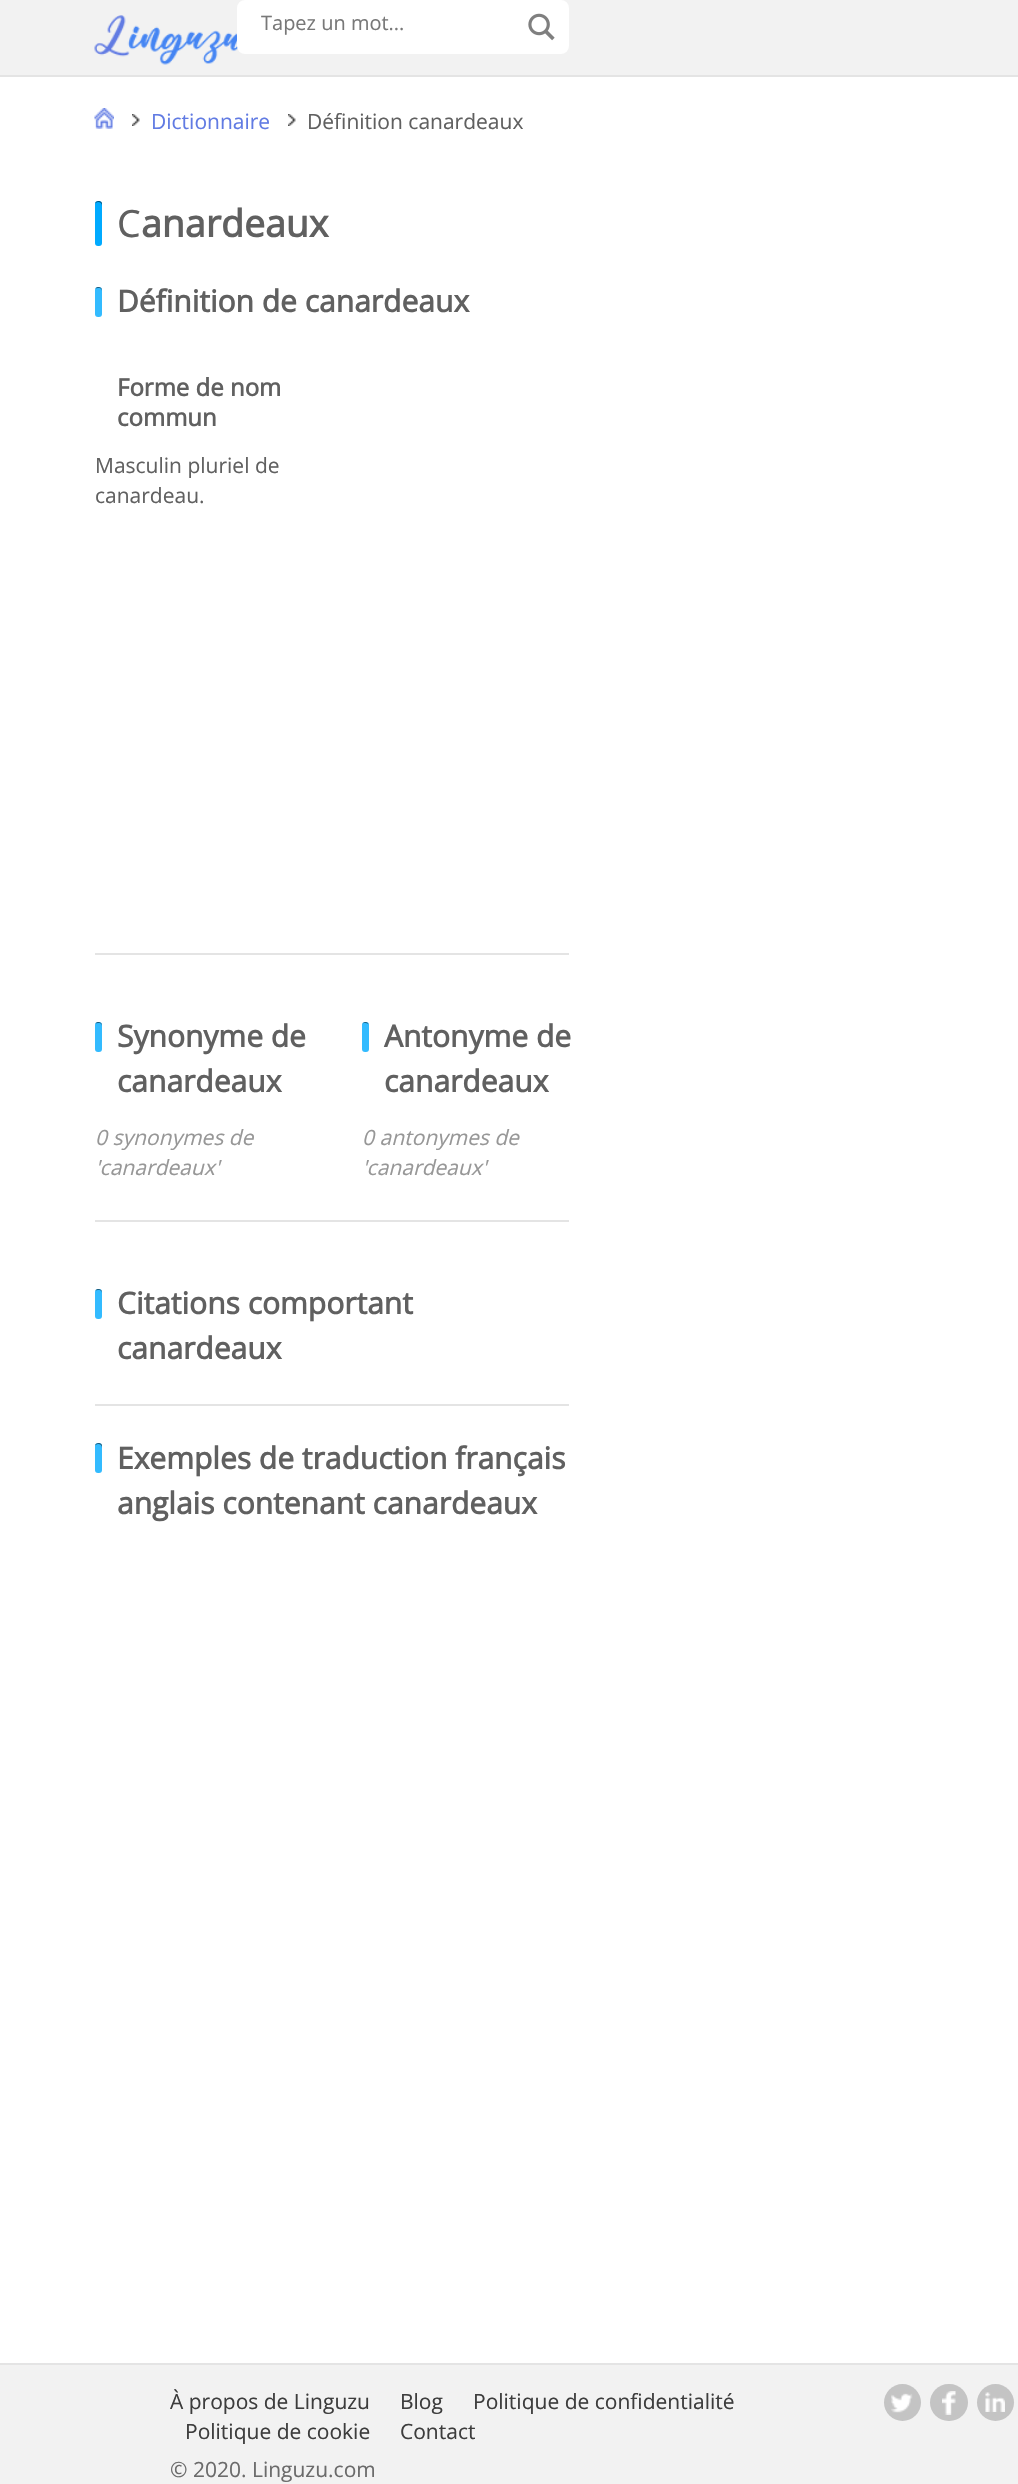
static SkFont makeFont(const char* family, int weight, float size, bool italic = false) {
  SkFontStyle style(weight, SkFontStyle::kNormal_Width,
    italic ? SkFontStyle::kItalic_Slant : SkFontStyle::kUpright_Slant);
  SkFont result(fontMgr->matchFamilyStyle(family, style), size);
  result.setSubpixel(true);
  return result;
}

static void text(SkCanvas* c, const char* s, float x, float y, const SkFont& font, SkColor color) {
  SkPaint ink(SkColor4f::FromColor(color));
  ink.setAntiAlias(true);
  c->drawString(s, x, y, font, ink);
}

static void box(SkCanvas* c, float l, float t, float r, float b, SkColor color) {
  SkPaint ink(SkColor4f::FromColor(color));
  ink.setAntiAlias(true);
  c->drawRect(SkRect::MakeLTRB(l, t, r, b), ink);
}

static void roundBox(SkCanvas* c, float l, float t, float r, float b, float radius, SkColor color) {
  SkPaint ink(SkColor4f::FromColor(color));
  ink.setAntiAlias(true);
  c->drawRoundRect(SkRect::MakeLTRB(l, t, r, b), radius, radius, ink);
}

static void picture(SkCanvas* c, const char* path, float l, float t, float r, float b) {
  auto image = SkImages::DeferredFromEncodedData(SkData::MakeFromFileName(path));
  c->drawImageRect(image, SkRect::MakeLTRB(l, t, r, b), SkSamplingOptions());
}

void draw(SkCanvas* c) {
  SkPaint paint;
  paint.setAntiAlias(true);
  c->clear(0xffffffff);
  box(c, 0, 0, 1018, 75, 0xfff2f2f2);
  box(c, 0, 75, 1018, 77, 0xffe4e4e4);
  picture(c, "img_01.png", 94, 15, 238, 65);
  paint.setColor(0xffffffff);
  c->drawRoundRect(SkRect::MakeLTRB(238, 1, 568, 53), 7, 7, paint);
  paint.setStyle(SkPaint::kStroke_Style);
  paint.setStrokeWidth(2);
  c->drawRoundRect(SkRect::MakeLTRB(238, 1, 568, 53), 7, 7, paint);
  SkFont face1 = makeFont("Open Sans", 400, 20);
  text(c, "Tapez un mot...", 261, 30, face1, 0xff787878);
  picture(c, "img_02.png", 528, 13, 555, 41);
  picture(c, "img_03.png", 94, 108, 114, 129);
  picture(c, "img_04.png", 132, 114, 140, 126);
  SkFont face2 = makeFont("Open Sans", 400, 21);
  text(c, "Dictionnaire", 151, 129, face2, 0xff617be3);
  picture(c, "img_05.png", 288, 114, 296, 126);
  text(c, "Définition canardeaux", 307, 129, face2, 0xff606060);
  roundBox(c, 95, 201, 102, 246, 3, 0xff00aaff);
  paint.setStyle(SkPaint::kFill_Style);
  paint.setColor(0x80000000);
  c->drawPath(SkPathBuilder().moveTo(98, 202).cubicTo(100.5f, 202, 102, 203.5f, 102, 206).lineTo(102, 203).cubicTo(100.5f, 200, 95.5f, 200.5f, 95, 203.5f).cubicTo(96, 202.5f, 97, 202, 98, 202).close().detach(), paint);
  SkFont face3 = makeFont("Noto Sans", 400, 37.5f);
  text(c, "C", 117, 237, face3, 0xff606060);
  SkFont face4 = makeFont("Open Sans", 700, 37.5f);
  text(c, "anardeaux", 141, 237, face4, 0xff606060);
  box(c, 95, 953, 569, 955, 0xffe4e4e4);
  roundBox(c, 95, 287, 102, 317, 3, 0xff33bbff);
  c->drawPath(SkPathBuilder().moveTo(98, 288).cubicTo(100, 288, 102, 288.5f, 102, 291).cubicTo(102, 290, 102, 289, 101.5f, 288.5f).cubicTo(100, 286.5f, 96.5f, 286.5f, 95.5f, 288.5f).close().detach(), paint);
  SkFont face5 = makeFont("Open Sans", 700, 30);
  text(c, "Définition de canardeaux", 117, 312, face5, 0xff606060);
  SkFont face6 = makeFont("Open Sans", 700, 24);
  text(c, "Forme de nom", 117, 396, face6, 0xff606060);
  text(c, "commun", 117, 426, face6, 0xff606060);
  text(c, "Masculin pluriel de", 95, 473, face2, 0xff606060);
  text(c, "canardeau.", 95, 503, face2, 0xff606060);
  box(c, 95, 1220, 569, 1222, 0xffe4e4e4);
  roundBox(c, 95, 1022, 102, 1052, 3, 0xff33bbff);
  c->drawPath(SkPathBuilder().moveTo(98, 1023).cubicTo(100, 1023, 102, 1023.5f, 102, 1026).cubicTo(102, 1025, 102, 1024, 101.5f, 1023.5f).cubicTo(100, 1021.5f, 96.5f, 1021.5f, 95.5f, 1023.5f).close().detach(), paint);
  text(c, "Synonyme de", 117, 1047, face5, 0xff606060);
  text(c, "canardeaux", 117, 1092, face5, 0xff606060);
  SkFont face7 = makeFont("Open Sans", 400, 21, true);
  text(c, "0 synonymes de", 95, 1145, face7, 0xff979797);
  text(c, "'canardeaux'", 95, 1175, face7, 0xff979797);
  roundBox(c, 362, 1022, 369, 1052, 3, 0xff33bbff);
  c->drawPath(SkPathBuilder().moveTo(364, 1023).cubicTo(366.5f, 1023, 369, 1023, 369, 1026).cubicTo(369, 1020.5f, 362, 1020.5f, 362, 1026).cubicTo(362, 1024, 363, 1023, 364, 1023).close().detach(), paint);
  text(c, "Antonyme de", 384, 1047, face5, 0xff606060);
  text(c, "canardeaux", 384, 1092, face5, 0xff606060);
  text(c, "0 antonymes de", 362, 1145, face7, 0xff979797);
  text(c, "'canardeaux'", 362, 1175, face7, 0xff979797);
  box(c, 95, 1404, 569, 1406, 0xffe4e4e4);
  roundBox(c, 95, 1289, 102, 1319, 3, 0xff33bbff);
  c->drawPath(SkPathBuilder().moveTo(98, 1290).cubicTo(100, 1290, 102, 1290.5f, 102, 1293).cubicTo(102, 1292, 102, 1291, 101.5f, 1290.5f).cubicTo(100, 1288.5f, 96.5f, 1288.5f, 95.5f, 1290.5f).close().detach(), paint);
  text(c, "Citations comportant", 117, 1314, face5, 0xff606060);
  text(c, "canardeaux", 117, 1359, face5, 0xff606060);
  roundBox(c, 95, 1443, 102, 1473, 3, 0xff33bbff);
  c->drawPath(SkPathBuilder().moveTo(98, 1444).cubicTo(100.5f, 1444, 102, 1445.5f, 102, 1448).lineTo(102, 1445).cubicTo(100.5f, 1442, 95.5f, 1442.5f, 95, 1445.5f).cubicTo(96, 1444.5f, 97, 1444, 98, 1444).close().detach(), paint);
  text(c, "Exemples de traduction français", 117, 1469, face5, 0xff606060);
  text(c, "anglais contenant canardeaux", 117, 1514, face5, 0xff606060);
  box(c, 0, 2365, 1018, 2484, 0xfff2f2f2);
  box(c, 0, 2363, 1018, 2365, 0xffe4e4e4);
  text(c, "À propos de Linguzu", 170, 2409, face2, 0xff3d3d3d);
  text(c, "Blog", 400, 2409, face2, 0xff3d3d3d);
  text(c, "Politique de confidentialité", 473, 2409, face2, 0xff3d3d3d);
  text(c, "Politique de cookie", 185, 2439, face2, 0xff3d3d3d);
  text(c, "Contact", 400, 2439, face2, 0xff3d3d3d);
  paint.setColor(0xffc4c4c4);
  c->drawCircle(902.5f, 2402.5f, 18.5f, paint);
  picture(c, "img_06.png", 891, 2393, 913, 2413);
  roundBox(c, 930, 2384, 968, 2421, 18.5f, 0xffc4c4c4);
  picture(c, "img_07.png", 942, 2391, 956, 2415);
  c->drawCircle(995.5f, 2402.5f, 18.5f, paint);
  picture(c, "img_08.png", 985, 2392, 1005, 2412);
  text(c, "© 2020. Linguzu.com", 170, 2477, face2, 0xff6b6b6b);
}
